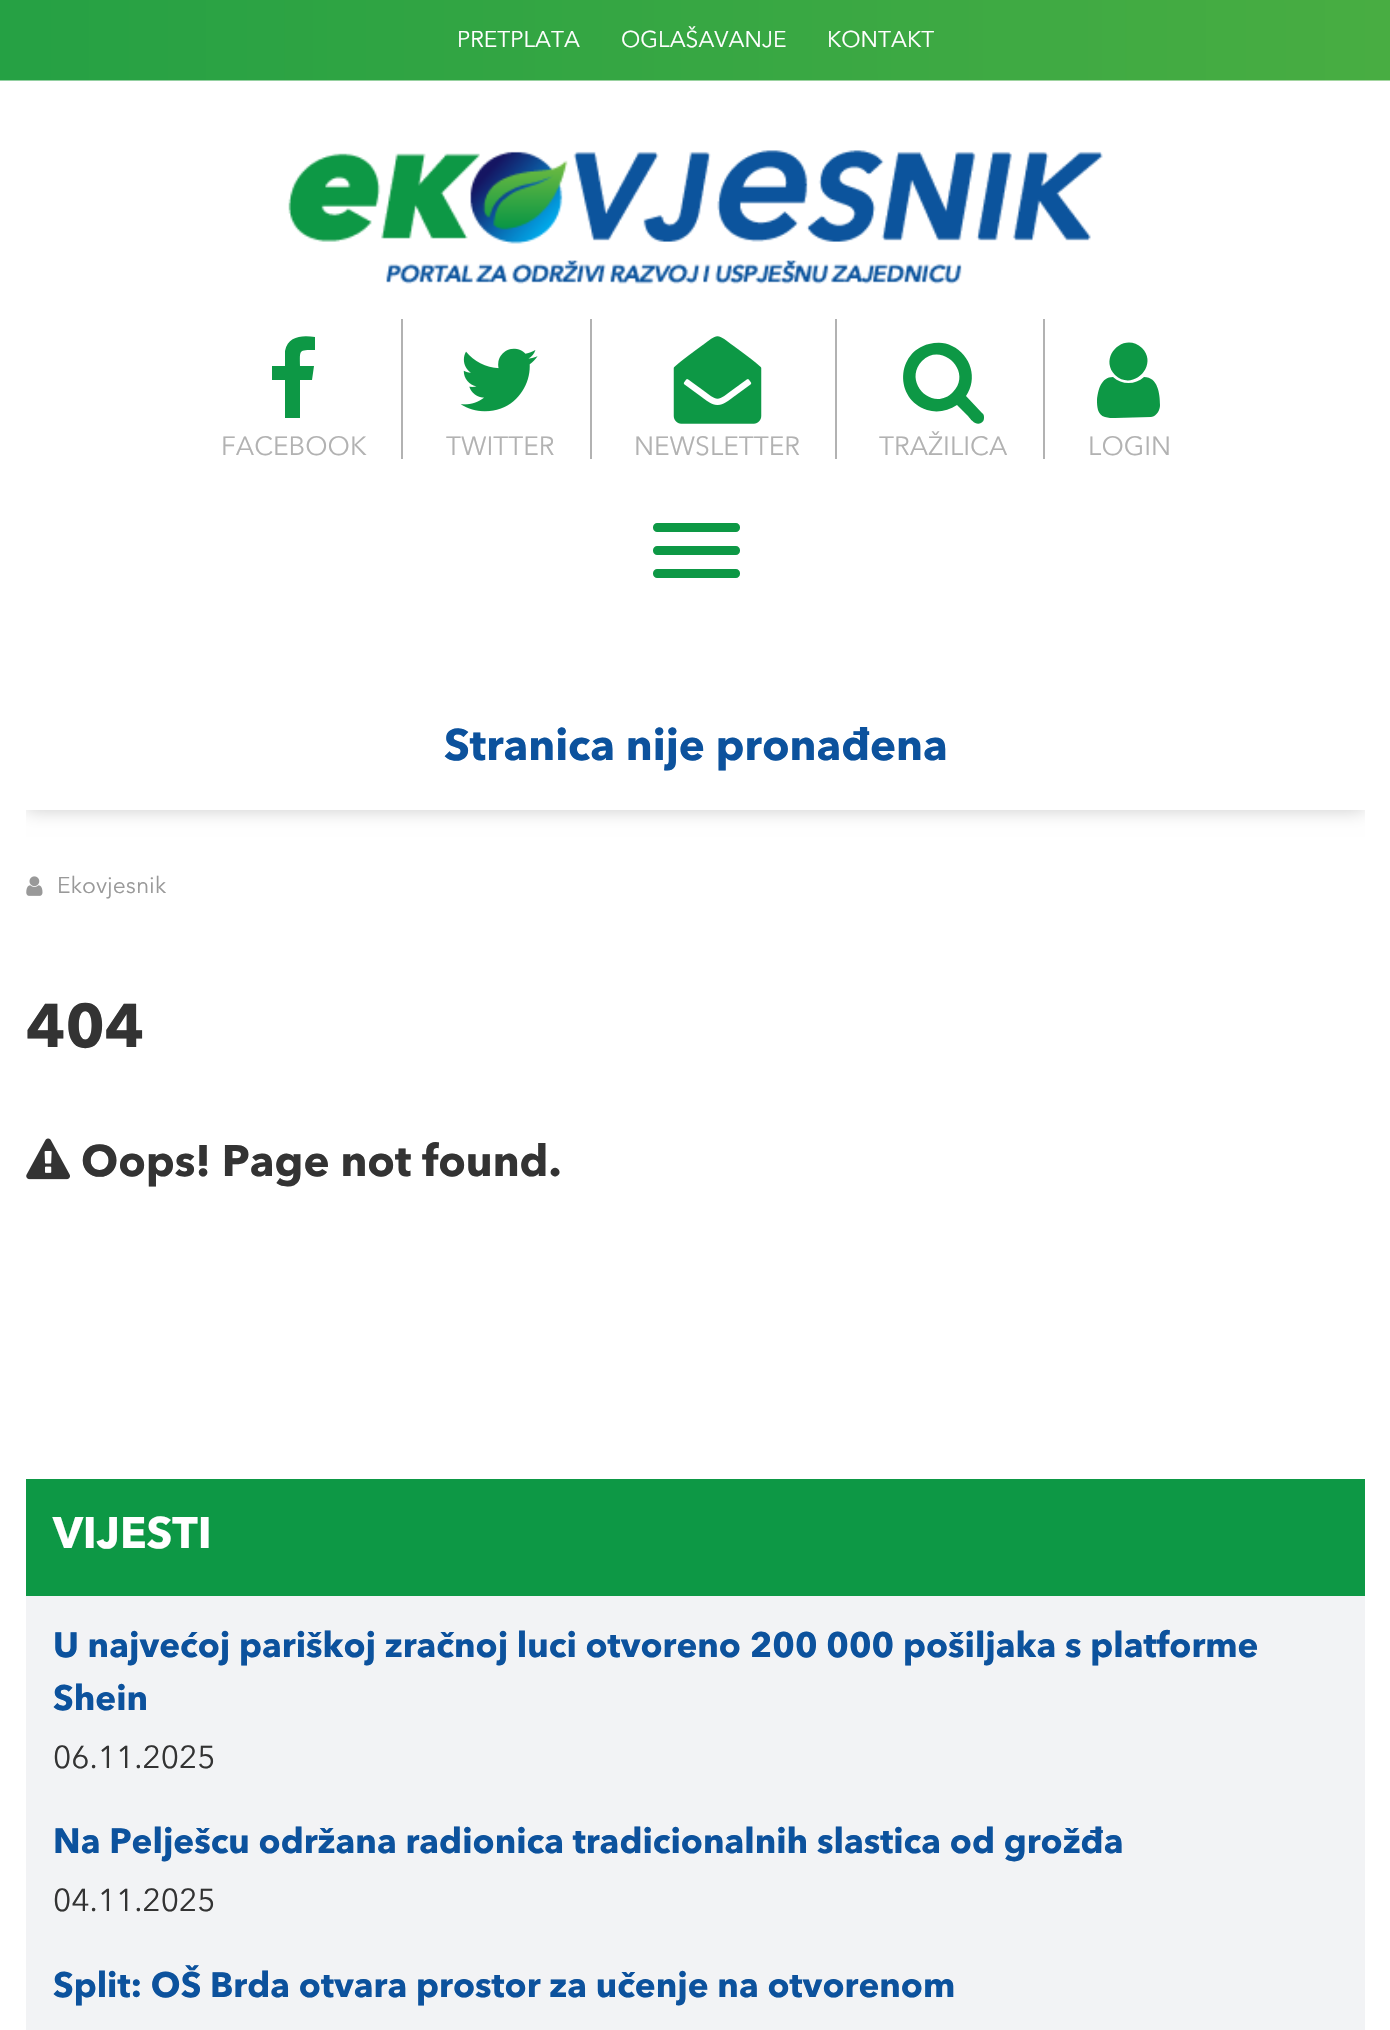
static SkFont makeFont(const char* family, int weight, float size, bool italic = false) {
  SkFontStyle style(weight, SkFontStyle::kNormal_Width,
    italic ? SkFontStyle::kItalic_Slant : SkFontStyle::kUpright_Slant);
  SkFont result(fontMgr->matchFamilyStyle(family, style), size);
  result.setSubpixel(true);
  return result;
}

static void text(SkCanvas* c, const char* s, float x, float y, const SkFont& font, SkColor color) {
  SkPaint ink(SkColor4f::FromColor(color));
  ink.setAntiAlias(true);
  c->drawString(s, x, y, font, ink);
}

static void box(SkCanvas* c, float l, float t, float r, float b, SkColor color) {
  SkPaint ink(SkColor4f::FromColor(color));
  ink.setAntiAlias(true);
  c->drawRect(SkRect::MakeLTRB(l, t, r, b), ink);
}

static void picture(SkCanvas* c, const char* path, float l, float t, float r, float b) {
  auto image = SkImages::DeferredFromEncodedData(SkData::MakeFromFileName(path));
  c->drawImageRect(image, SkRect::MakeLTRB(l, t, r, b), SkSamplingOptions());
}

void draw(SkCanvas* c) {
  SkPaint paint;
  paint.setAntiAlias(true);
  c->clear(0xffffffff);
  picture(c, "img_01.png", 0, 0, 1390, 81);
  SkFont face1 = makeFont("Avenir Next", 400, 22.75f);
  text(c, "PRETPLATA", 457, 47, face1, 0xffffffff);
  text(c, "OGLAŠAVANJE", 621, 47, face1, 0xffffffff);
  text(c, "KONTAKT", 827, 47, face1, 0xffffffff);
  picture(c, "img_02.png", 288, 150, 1103, 284);
  box(c, 401, 319, 403, 459, 0xffb2b2b2);
  paint.setColor(0xff0d9845);
  c->drawPath(SkPathBuilder().moveTo(315, 337).lineTo(315, 350).cubicTo(298, 350, 300, 350, 300, 366).lineTo(314, 366).lineTo(312, 380).lineTo(300, 380).lineTo(300, 418).lineTo(285, 418).lineTo(285, 380).lineTo(272, 380).lineTo(272, 366).lineTo(285, 366).lineTo(285, 351).cubicTo(288, 336, 302, 335, 315, 337).close().detach(), paint);
  SkFont face2 = makeFont("Avenir Next", 400, 26.25f);
  text(c, "FACEBOOK", 221, 455, face2, 0xffb2b2b2);
  box(c, 590, 319, 592, 459, 0xffb2b2b2);
  picture(c, "img_03.png", 460, 348, 538, 412);
  text(c, "TWITTER", 446, 455, face2, 0xffb2b2b2);
  box(c, 835, 319, 837, 459, 0xffb2b2b2);
  picture(c, "img_04.png", 673, 336, 762, 424);
  text(c, "NEWSLETTER", 634, 455, face2, 0xffb2b2b2);
  box(c, 1043, 319, 1045, 459, 0xffb2b2b2);
  c->drawPath(SkPathBuilder().moveTo(953, 392).cubicTo(973, 372, 942, 341, 922, 361).cubicTo(902, 382, 933, 413, 953, 392).close().moveTo(984, 418).cubicTo(984, 420, 983, 422, 981, 423).cubicTo(976, 426, 971, 420, 968, 416).lineTo(957, 405).cubicTo(948, 411, 937, 413, 927, 410).cubicTo(894, 399, 896, 352, 929, 344).cubicTo(937, 342, 945, 342, 952, 346).cubicTo(971, 355, 978, 379, 966, 396).lineTo(982, 413).cubicTo(984, 414, 984, 416, 984, 418).close().detach(), paint);
  text(c, "TRAŽILICA", 879, 455, face2, 0xffb2b2b2);
  c->drawPath(SkPathBuilder().moveTo(1160, 405).cubicTo(1160, 410, 1157, 416, 1151, 417).lineTo(1115, 418).cubicTo(1112, 418, 1108, 418, 1105, 417).cubicTo(1101, 416, 1099, 413, 1098, 410).cubicTo(1097, 406, 1097, 403, 1097, 400).cubicTo(1098, 390, 1101, 377, 1113, 377).cubicTo(1122, 385, 1135, 385, 1144, 377).cubicTo(1158, 377, 1160, 394, 1160, 405).close().moveTo(1142, 348).cubicTo(1159, 365, 1133, 392, 1115, 375).cubicTo(1098, 357, 1124, 331, 1142, 348).close().detach(), paint);
  text(c, "LOGIN", 1088, 455, face2, 0xffb2b2b2);
  c->drawPath(SkPathBuilder().moveTo(657, 523).lineTo(697, 523).lineTo(697, 532).lineTo(657, 532).cubicTo(655, 532, 653, 530, 653, 528).lineTo(653, 527).cubicTo(653, 525, 655, 523, 657, 523).close().detach(), paint);
  c->drawPath(SkPathBuilder().moveTo(697, 523).lineTo(736, 523).cubicTo(738, 523, 740, 525, 740, 527).lineTo(740, 528).cubicTo(740, 530, 738, 532, 736, 532).lineTo(697, 532).close().detach(), paint);
  c->drawPath(SkPathBuilder().moveTo(657, 546).lineTo(697, 546).lineTo(697, 555).lineTo(657, 555).cubicTo(655, 555, 653, 553, 653, 551).lineTo(653, 550).cubicTo(653, 548, 655, 546, 657, 546).close().detach(), paint);
  c->drawPath(SkPathBuilder().moveTo(697, 546).lineTo(736, 546).cubicTo(738, 546, 740, 548, 740, 550).lineTo(740, 551).cubicTo(740, 553, 738, 555, 736, 555).lineTo(697, 555).close().detach(), paint);
  c->drawPath(SkPathBuilder().moveTo(657, 569).lineTo(697, 569).lineTo(697, 578).lineTo(657, 578).cubicTo(655, 578, 653, 576, 653, 574).lineTo(653, 573).cubicTo(653, 571, 655, 569, 657, 569).close().detach(), paint);
  c->drawPath(SkPathBuilder().moveTo(697, 569).lineTo(736, 569).cubicTo(738, 569, 740, 571, 740, 573).lineTo(740, 574).cubicTo(740, 576, 738, 578, 736, 578).lineTo(697, 578).close().detach(), paint);
  c->save();
  c->clipRect(SkRect::MakeLTRB(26, 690, 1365, 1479));
  c->clipPath(SkPathBuilder(SkPathFillType::kEvenOdd).moveTo(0, 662).lineTo(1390, 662).lineTo(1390, 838).lineTo(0, 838).close().moveTo(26, 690).lineTo(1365, 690).lineTo(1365, 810).lineTo(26, 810).close().detach(), true);
  paint.setColor(0xffcccccc);
  paint.setMaskFilter(SkMaskFilter::MakeBlur(kNormal_SkBlurStyle, 9));
  c->drawRect(SkRect::MakeLTRB(26, 690, 1365, 810), paint);
  paint.setMaskFilter(nullptr);
  c->restore();
  SkFont face3 = makeFont("Avenir Next", 700, 43.75f);
  text(c, "Stranica nije pronađena", 444, 760, face3, 0xff0c529d);
  picture(c, "img_05.png", 26, 876, 43, 896);
  text(c, "Ekovjesnik", 57, 893, face1, 0xff999999);
  SkFont face4 = makeFont("Avenir Next", 700, 61);
  text(c, "404", 26, 1047, face4, 0xff333333);
  picture(c, "img_06.png", 26, 1138, 70, 1180);
  text(c, "Oops! Page not found.", 81, 1176, face3, 0xff333333);
  box(c, 26, 1596, 1365, 2030, 0xfff2f3f5);
  box(c, 26, 1479, 1365, 1596, 0xff0d9845);
  text(c, "VIJESTI", 53, 1548, face3, 0xffffffff);
  SkFont face5 = makeFont("Avenir Next", 700, 35);
  text(c, "U najvećoj pariškoj zračnoj luci otvoreno 200 000 pošiljaka s platforme", 53, 1657, face5, 0xff0c529d);
  text(c, "Shein", 53, 1710, face5, 0xff0c529d);
  SkFont face6 = makeFont("Avenir Next", 400, 31.5f);
  text(c, "06.11.2025", 53, 1768, face6, 0xff333333);
  text(c, "Na Pelješcu održana radionica tradicionalnih slastica od grožđa", 53, 1853, face5, 0xff0c529d);
  text(c, "04.11.2025", 53, 1911, face6, 0xff333333);
  text(c, "Split: OŠ Brda otvara prostor za učenje na otvorenom", 53, 1997, face5, 0xff0c529d);
}
